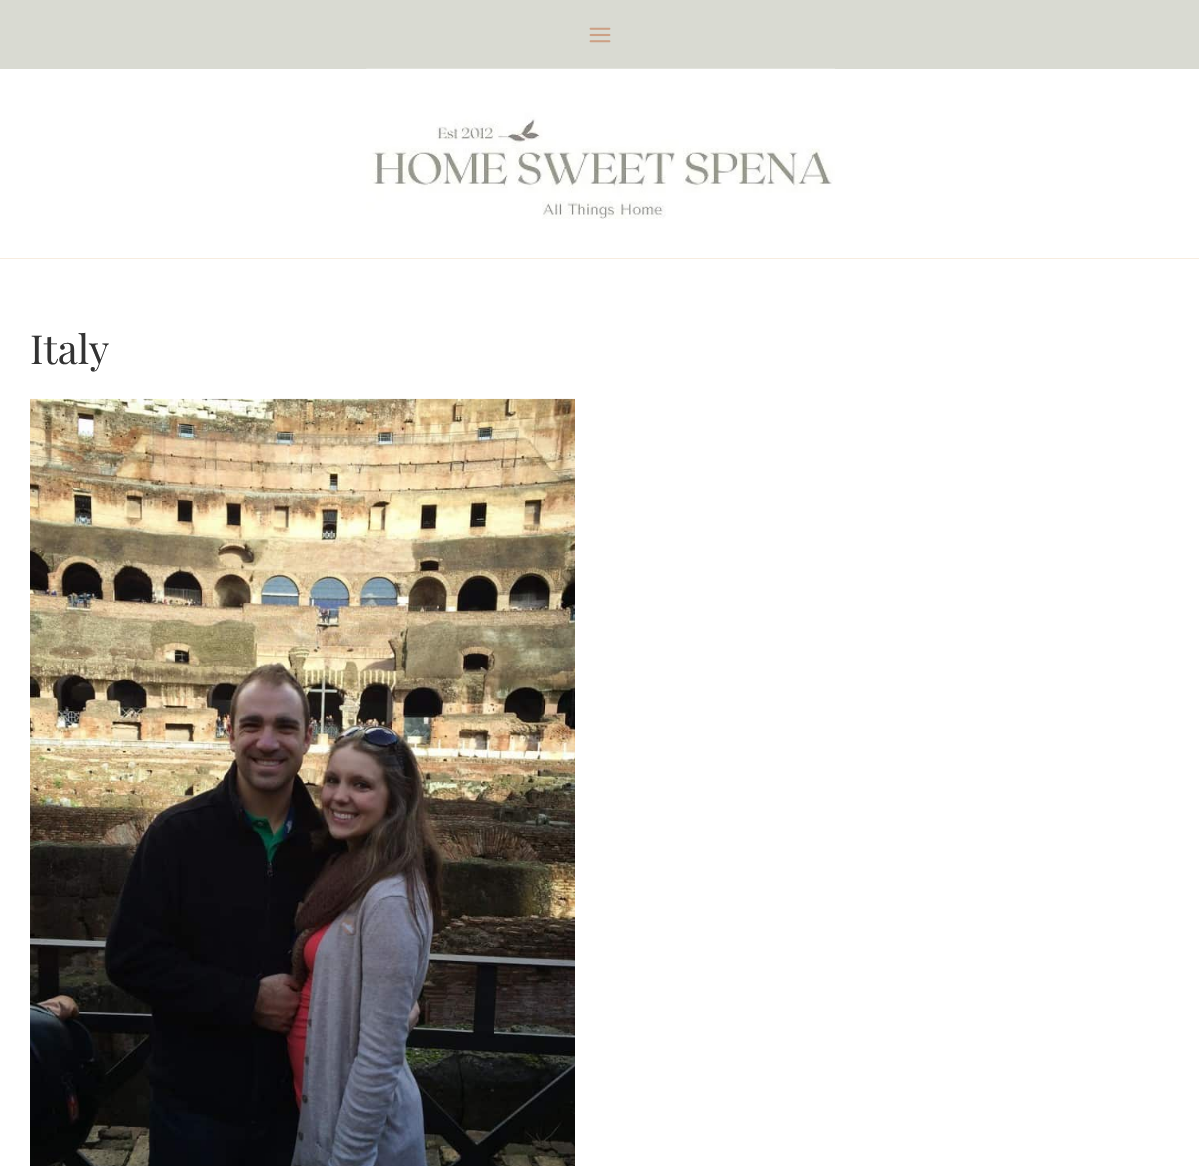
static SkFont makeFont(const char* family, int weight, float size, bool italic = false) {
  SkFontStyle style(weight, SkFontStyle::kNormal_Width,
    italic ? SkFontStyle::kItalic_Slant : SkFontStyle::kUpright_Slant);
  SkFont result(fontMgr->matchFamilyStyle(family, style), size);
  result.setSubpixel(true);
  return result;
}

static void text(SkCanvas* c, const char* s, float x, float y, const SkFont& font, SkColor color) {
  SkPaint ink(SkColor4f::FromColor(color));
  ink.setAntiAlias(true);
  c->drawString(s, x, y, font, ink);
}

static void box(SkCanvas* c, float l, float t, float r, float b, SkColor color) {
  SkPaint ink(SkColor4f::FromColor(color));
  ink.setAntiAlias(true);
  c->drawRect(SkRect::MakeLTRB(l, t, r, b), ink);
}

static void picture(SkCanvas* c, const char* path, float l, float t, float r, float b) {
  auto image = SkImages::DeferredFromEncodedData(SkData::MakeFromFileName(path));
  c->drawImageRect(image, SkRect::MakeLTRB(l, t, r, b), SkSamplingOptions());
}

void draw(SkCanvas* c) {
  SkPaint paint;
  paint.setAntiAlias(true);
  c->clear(0xffffffff);
  box(c, 0, 0, 1199, 69, 0xffd9dad2);
  picture(c, "img_01.png", 589, 27, 611, 43);
  box(c, 0, 258, 1199, 259, 0xfff7ecdf);
  picture(c, "img_02.png", 366, 68, 835, 219);
  SkFont face1 = makeFont("Playfair Display", 400, 40);
  text(c, "Italy", 30, 364, face1, 0xff333333);
  picture(c, "img_03.png", 30, 398, 575, 1166);
}
